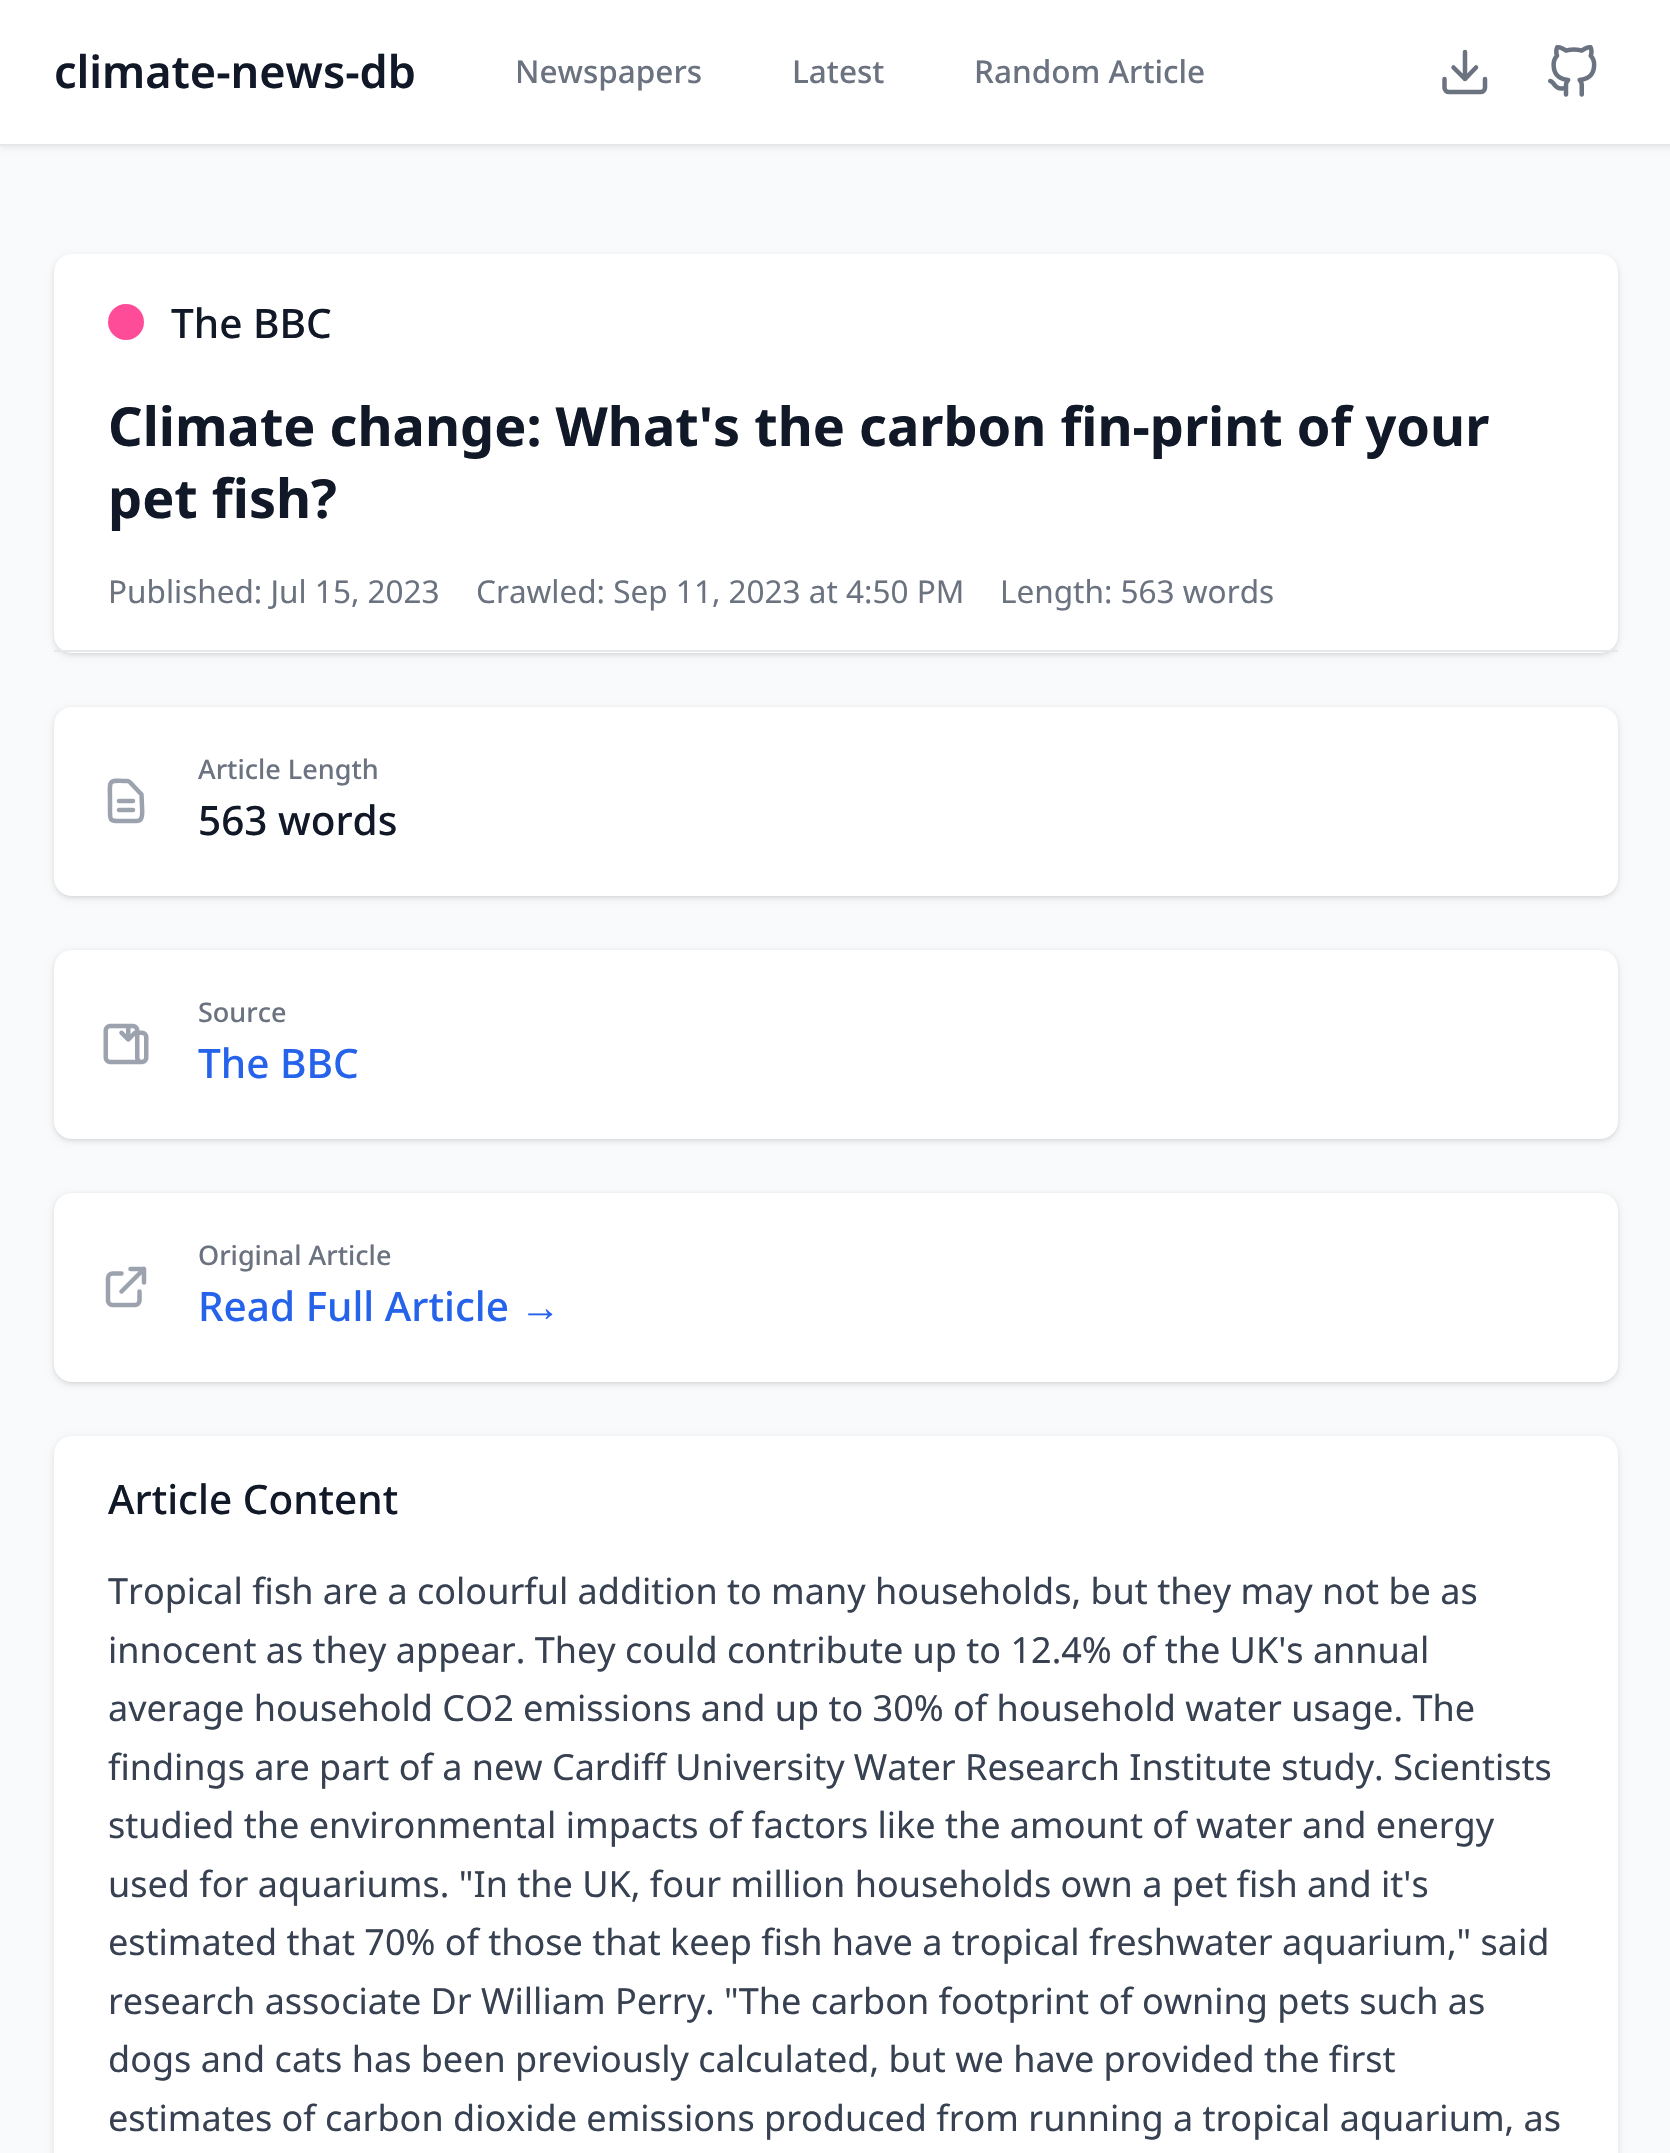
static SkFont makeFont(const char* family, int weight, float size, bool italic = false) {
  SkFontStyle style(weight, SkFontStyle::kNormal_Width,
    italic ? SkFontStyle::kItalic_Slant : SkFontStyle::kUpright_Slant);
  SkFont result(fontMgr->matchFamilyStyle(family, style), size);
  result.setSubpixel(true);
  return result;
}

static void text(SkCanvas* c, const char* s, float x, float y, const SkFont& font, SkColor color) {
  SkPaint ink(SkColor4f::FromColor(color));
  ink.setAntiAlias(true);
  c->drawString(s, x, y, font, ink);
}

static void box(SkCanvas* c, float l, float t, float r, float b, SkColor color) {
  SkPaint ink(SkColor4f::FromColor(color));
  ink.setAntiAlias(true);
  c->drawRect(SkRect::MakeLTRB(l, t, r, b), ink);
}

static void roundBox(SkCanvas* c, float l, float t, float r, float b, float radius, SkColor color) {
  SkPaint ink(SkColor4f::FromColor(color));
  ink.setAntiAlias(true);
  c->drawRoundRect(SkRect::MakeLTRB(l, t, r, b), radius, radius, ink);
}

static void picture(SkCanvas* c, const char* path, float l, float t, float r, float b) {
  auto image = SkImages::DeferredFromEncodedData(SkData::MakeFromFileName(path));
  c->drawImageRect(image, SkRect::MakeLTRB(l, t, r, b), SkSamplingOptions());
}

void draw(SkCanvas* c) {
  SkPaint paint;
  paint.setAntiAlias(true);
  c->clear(0xfff9fafb);
  paint.setColor(0x0d000000);
  paint.setMaskFilter(SkMaskFilter::MakeBlur(kNormal_SkBlurStyle, 2));
  c->drawRect(SkRect::MakeLTRB(0, 2, 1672, 149), paint);
  paint.setMaskFilter(nullptr);
  box(c, 0, 0, 1670, 144, 0xffffffff);
  box(c, 0, 144, 1670, 146, 0xffe5e7eb);
  SkFont face1 = makeFont("Noto Sans", 600, 45);
  text(c, "climate-news-db", 54, 88, face1, 0xff111827);
  SkFont face2 = makeFont("Noto Sans", 500, 31.5f);
  text(c, "Newspapers", 515, 83, face2, 0xff6b7280);
  text(c, "Latest", 792, 83, face2, 0xff6b7280);
  text(c, "Random Article", 974, 83, face2, 0xff6b7280);
  paint.setStyle(SkPaint::kStroke_Style);
  paint.setStrokeWidth(4.5f);
  paint.setStrokeCap(SkPaint::kRound_Cap);
  paint.setStrokeJoin(SkPaint::kRound_Join);
  paint.setColor(0xff6b7280);
  c->drawPath(SkPathBuilder().moveTo(1485, 79).lineTo(1485, 88).cubicTo(1485, 90, 1483, 92, 1480.5f, 92).lineTo(1449, 92).cubicTo(1446.5f, 92, 1444.5f, 90, 1444.5f, 88).lineTo(1444.5f, 79).moveTo(1453.5f, 67.5f).lineTo(1465, 79).lineTo(1476, 67.5f).moveTo(1465, 79).lineTo(1465, 52).detach(), paint);
  picture(c, "img_01.png", 1548, 45, 1597, 97);
  paint.setStyle(SkPaint::kFill_Style);
  paint.setColor(0x1a000000);
  paint.setMaskFilter(SkMaskFilter::MakeBlur(kNormal_SkBlurStyle, 2));
  c->drawRoundRect(SkRect::MakeLTRB(56, 259, 1616, 653), 16, 16, paint);
  paint.setMaskFilter(nullptr);
  paint.setMaskFilter(SkMaskFilter::MakeBlur(kNormal_SkBlurStyle, 3.5f));
  c->drawRoundRect(SkRect::MakeLTRB(54, 257, 1618, 655), 18, 18, paint);
  paint.setMaskFilter(nullptr);
  roundBox(c, 54, 254, 1618, 653, 18, 0xffffffff);
  box(c, 54, 650, 1618, 652, 0xffe5e7eb);
  paint.setColor(0xffff4c98);
  c->drawCircle(126, 322, 18, paint);
  SkFont face3 = makeFont("Noto Sans", 500, 40.5f);
  text(c, "The BBC", 171, 338, face3, 0xff111827);
  SkFont face4 = makeFont("Noto Sans", 700, 54);
  text(c, "Climate change: What's the carbon fin-print of your", 108, 446, face4, 0xff111827);
  text(c, "pet fish?", 108, 518, face4, 0xff111827);
  SkFont face5 = makeFont("Noto Sans", 400, 31.5f);
  text(c, "Published: Jul 15, 2023", 108, 603, face5, 0xff6b7280);
  text(c, "Crawled: Sep 11, 2023 at 4:50 PM", 476, 603, face5, 0xff6b7280);
  text(c, "Length: 563 words", 1000, 603, face5, 0xff6b7280);
  paint.setColor(0x1a000000);
  paint.setMaskFilter(SkMaskFilter::MakeBlur(kNormal_SkBlurStyle, 2));
  c->drawRoundRect(SkRect::MakeLTRB(56, 711, 1616, 896), 16, 16, paint);
  paint.setMaskFilter(nullptr);
  paint.setMaskFilter(SkMaskFilter::MakeBlur(kNormal_SkBlurStyle, 3.5f));
  c->drawRoundRect(SkRect::MakeLTRB(54, 709, 1618, 898), 18, 18, paint);
  paint.setMaskFilter(nullptr);
  roundBox(c, 54, 707, 1618, 896, 18, 0xffffffff);
  paint.setStyle(SkPaint::kStroke_Style);
  paint.setColor(0xff9ca3af);
  c->drawPath(SkPathBuilder().moveTo(119, 801).lineTo(133, 801).moveTo(119, 810).lineTo(133, 810).moveTo(137, 821).lineTo(118.5f, 821).cubicTo(110, 821, 110, 819.5f, 110, 811.5f).lineTo(110, 801).cubicTo(110, 779, 107, 780.5f, 127.5f, 781).cubicTo(129.5f, 781, 131.5f, 784, 133, 785.5f).lineTo(141.5f, 794.5f).lineTo(142, 806).cubicTo(142, 810, 144, 821, 137, 821).close().detach(), paint);
  SkFont face6 = makeFont("Noto Sans", 500, 27);
  text(c, "Article Length", 198, 779, face6, 0xff6b7280);
  text(c, "563 words", 198, 835, face3, 0xff111827);
  paint.setStyle(SkPaint::kFill_Style);
  paint.setColor(0x1a000000);
  paint.setMaskFilter(SkMaskFilter::MakeBlur(kNormal_SkBlurStyle, 2));
  c->drawRoundRect(SkRect::MakeLTRB(56, 954, 1616, 1139), 16, 16, paint);
  paint.setMaskFilter(nullptr);
  paint.setMaskFilter(SkMaskFilter::MakeBlur(kNormal_SkBlurStyle, 3.5f));
  c->drawRoundRect(SkRect::MakeLTRB(54, 952, 1618, 1141), 18, 18, paint);
  paint.setMaskFilter(nullptr);
  roundBox(c, 54, 950, 1618, 1139, 18, 0xffffffff);
  picture(c, "img_02.png", 103, 1023, 149, 1065);
  text(c, "Source", 198, 1022, face6, 0xff6b7280);
  text(c, "The BBC", 198, 1078, face3, 0xff2563eb);
  paint.setMaskFilter(SkMaskFilter::MakeBlur(kNormal_SkBlurStyle, 2));
  c->drawRoundRect(SkRect::MakeLTRB(56, 1197, 1616, 1382), 16, 16, paint);
  paint.setMaskFilter(nullptr);
  paint.setMaskFilter(SkMaskFilter::MakeBlur(kNormal_SkBlurStyle, 3.5f));
  c->drawRoundRect(SkRect::MakeLTRB(54, 1195, 1618, 1384), 18, 18, paint);
  paint.setMaskFilter(nullptr);
  roundBox(c, 54, 1193, 1618, 1382, 18, 0xffffffff);
  paint.setStyle(SkPaint::kStroke_Style);
  paint.setColor(0xff9ca3af);
  c->drawPath(SkPathBuilder().moveTo(121.5f, 1273.5f).lineTo(112.5f, 1273.5f).cubicTo(110, 1273.5f, 108, 1275.5f, 108, 1278).lineTo(108, 1300.5f).cubicTo(108, 1303, 110, 1305, 112.5f, 1305).lineTo(135, 1305).cubicTo(137.5f, 1305, 139.5f, 1303, 139.5f, 1300.5f).lineTo(139.5f, 1291.5f).moveTo(130.5f, 1269).lineTo(144, 1269).moveTo(144, 1269).lineTo(144, 1282.5f).moveTo(144, 1269).lineTo(121.5f, 1291.5f).detach(), paint);
  text(c, "Original Article", 198, 1265, face6, 0xff6b7280);
  text(c, "Read Full Article", 198, 1321, face3, 0xff2563eb);
  SkFont face7 = makeFont("Liberation Sans", 400, 40.5f);
  text(c, "→", 520, 1321, face7, 0xff2563eb);
  paint.setStyle(SkPaint::kFill_Style);
  paint.setColor(0x1a000000);
  paint.setMaskFilter(SkMaskFilter::MakeBlur(kNormal_SkBlurStyle, 3.5f));
  c->drawRoundRect(SkRect::MakeLTRB(54, 1438, 1618, 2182), 18, 18, paint);
  paint.setMaskFilter(nullptr);
  roundBox(c, 54, 1436, 1618, 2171, 18, 0xffffffff);
  text(c, "Article Content", 108, 1514, face3, 0xff111827);
  SkFont face8 = makeFont("Noto Sans", 400, 36);
  text(c, "Tropical fish are a colourful addition to many households, but they may not be as", 108, 1604, face8, 0xff374151);
  text(c, "innocent as they appear. They could contribute up to 12.4% of the UK's annual", 108, 1663, face8, 0xff374151);
  text(c, "average household CO2 emissions and up to 30% of household water usage. The", 108, 1721, face8, 0xff374151);
  text(c, "findings are part of a new Cardiff University Water Research Institute study. Scientists", 108, 1780, face8, 0xff374151);
  text(c, "studied the environmental impacts of factors like the amount of water and energy", 108, 1838, face8, 0xff374151);
  text(c, "used for aquariums. \"In the UK, four million households own a pet fish and it's", 108, 1897, face8, 0xff374151);
  text(c, "estimated that 70% of those that keep fish have a tropical freshwater aquarium,\" said", 108, 1955, face8, 0xff374151);
  text(c, "research associate Dr William Perry. \"The carbon footprint of owning pets such as", 108, 2014, face8, 0xff374151);
  text(c, "dogs and cats has been previously calculated, but we have provided the first", 108, 2072, face8, 0xff374151);
  text(c, "estimates of carbon dioxide emissions produced from running a tropical aquarium, as", 108, 2131, face8, 0xff374151);
}
